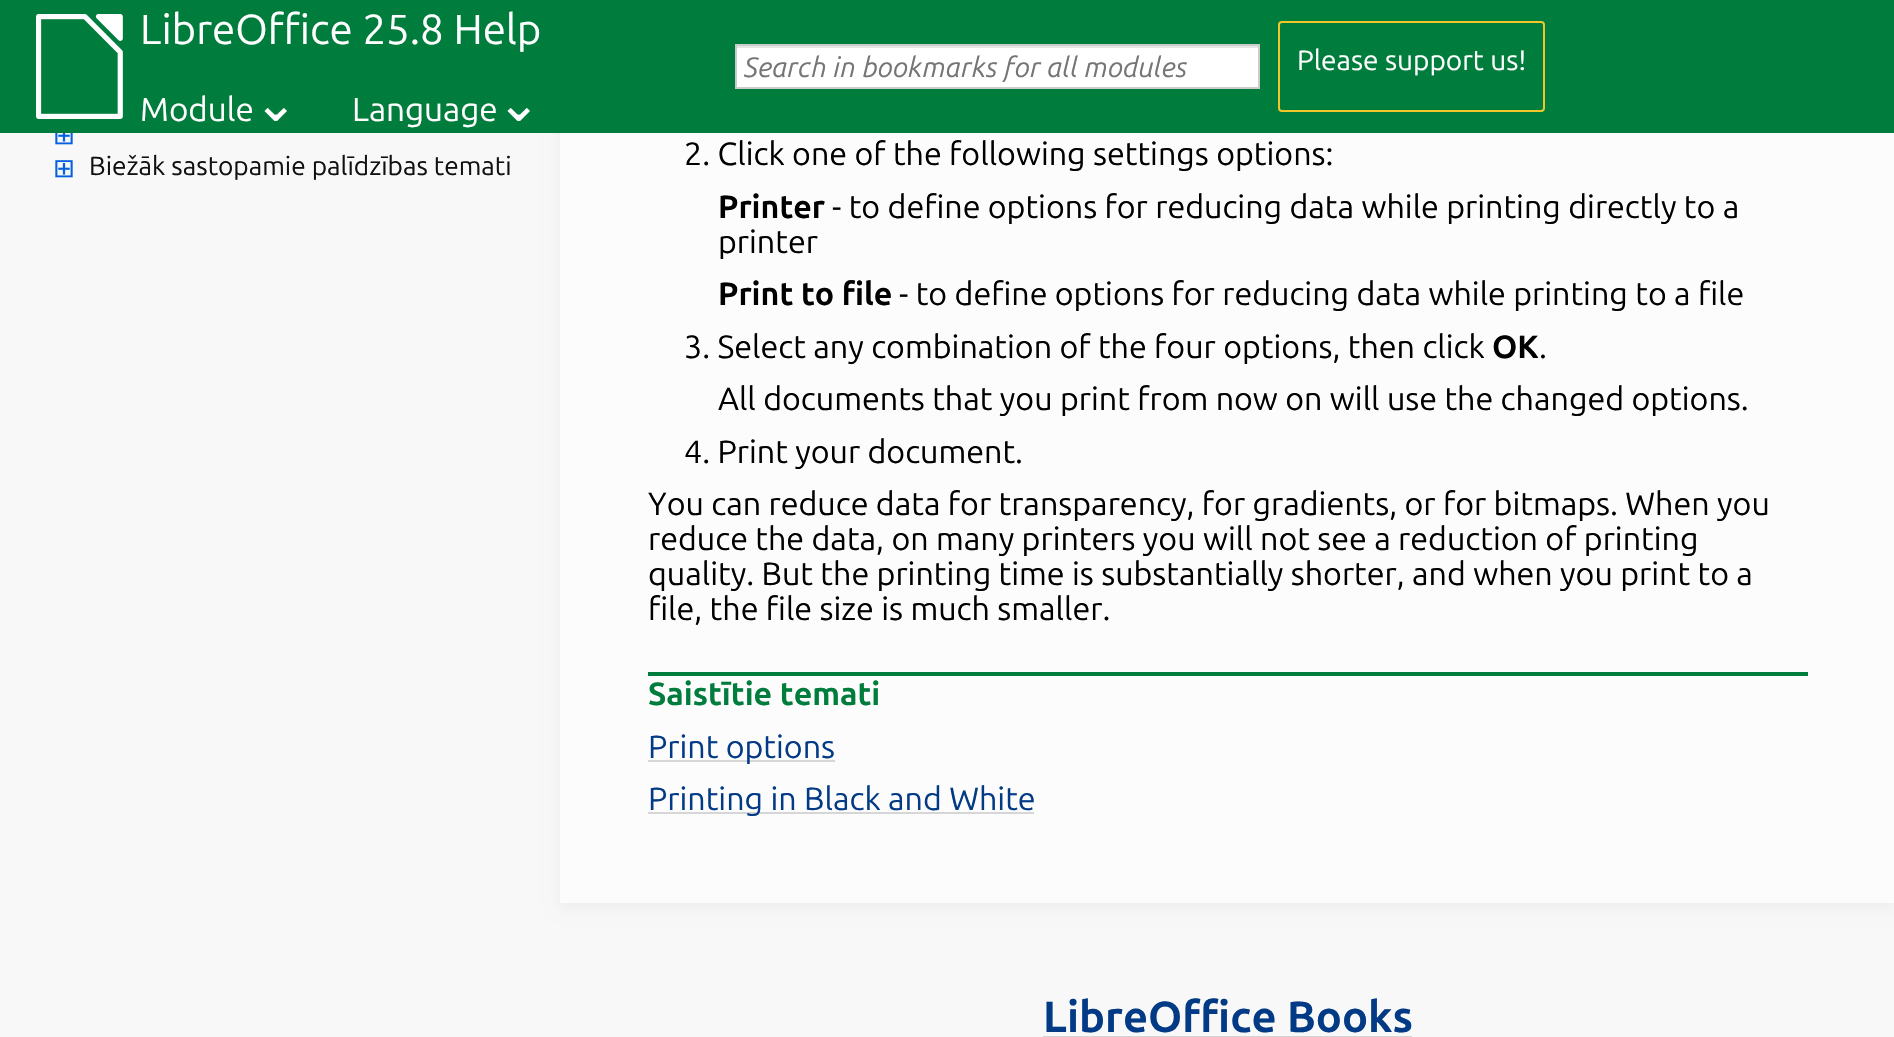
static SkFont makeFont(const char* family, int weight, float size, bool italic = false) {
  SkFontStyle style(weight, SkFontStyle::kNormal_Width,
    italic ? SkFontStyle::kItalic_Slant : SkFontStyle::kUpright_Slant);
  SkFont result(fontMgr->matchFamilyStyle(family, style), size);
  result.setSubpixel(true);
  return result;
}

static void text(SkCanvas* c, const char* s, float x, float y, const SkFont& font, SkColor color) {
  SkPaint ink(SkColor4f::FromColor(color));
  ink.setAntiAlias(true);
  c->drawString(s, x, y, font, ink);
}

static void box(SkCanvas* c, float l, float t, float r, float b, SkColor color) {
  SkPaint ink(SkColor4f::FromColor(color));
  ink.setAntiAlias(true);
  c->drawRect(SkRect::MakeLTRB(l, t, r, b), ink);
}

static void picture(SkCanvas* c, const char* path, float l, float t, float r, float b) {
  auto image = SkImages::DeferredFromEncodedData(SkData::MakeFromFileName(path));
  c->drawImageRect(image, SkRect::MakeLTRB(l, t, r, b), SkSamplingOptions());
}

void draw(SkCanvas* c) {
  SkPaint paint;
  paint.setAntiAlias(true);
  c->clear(0xfff7f8f7);
  SkFont face1 = makeFont("DejaVu Sans", 400, 26.25f);
  text(c, "⊞", 53, 144, face1, 0xff0461e0);
  paint.setColor(0x0d000000);
  paint.setMaskFilter(SkMaskFilter::MakeBlur(kNormal_SkBlurStyle, 7));
  c->drawRect(SkRect::MakeLTRB(560, -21, 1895, 907), paint);
  paint.setMaskFilter(nullptr);
  box(c, 0, 0, 1894, 133, 0xff007c3c);
  picture(c, "img_01.png", 36, 14, 123, 119);
  SkFont face2 = makeFont("Ubuntu", 400, 42);
  text(c, "LibreOffice 25.8 Help", 140, 44, face2, 0xffffffff);
  SkFont face3 = makeFont("Ubuntu", 400, 33.25f);
  text(c, "Module", 140, 121, face3, 0xffffffff);
  SkFont face4 = makeFont("DejaVu Sans", 400, 52);
  text(c, "⌄", 254, 121, face4, 0xffffffff);
  text(c, "Language", 352, 121, face3, 0xffffffff);
  text(c, "⌄", 497, 121, face4, 0xffffffff);
  box(c, 737, 48, 1258, 87, 0xffffffff);
  box(c, 737, 46, 1258, 48, 0xffe6e6e6);
  paint.setStyle(SkPaint::kStroke_Style);
  paint.setStrokeWidth(2);
  paint.setColor(0xffcccccc);
  c->drawRect(SkRect::MakeLTRB(736, 45, 1259, 88), paint);
  c->save();
  c->clipRect(SkRect::MakeLTRB(744, 51, 1225, 82));
  SkFont face5 = makeFont("Ubuntu", 400, 28, true);
  text(c, "Search in bookmarks for all modules", 744, 77, face5, 0xff757575);
  c->restore();
  paint.setColor(0xfff1c62a);
  c->drawRoundRect(SkRect::MakeLTRB(1279, 22, 1544, 111), 3, 3, paint);
  SkFont face6 = makeFont("Ubuntu", 400, 28);
  text(c, "Please support us!", 1297, 70, face6, 0xffffffff);
  text(c, "⊞", 53, 177, face1, 0xff0461e0);
  SkFont face7 = makeFont("Ubuntu", 400, 26.25f);
  text(c, "Biežāk sastopamie palīdzības temati", 89, 175, face7, 0xff111111);
  box(c, 560, 133, 1894, 903, 0xfffcfcfc);
  SkFont face8 = makeFont("Ubuntu", 400, 32.2f);
  text(c, "2. Click one of the following settings options:", 684, 165, face8, 0xff000000);
  SkFont face9 = makeFont("Ubuntu", 700, 32.2f);
  text(c, "Printer", 718, 218, face9, 0xff000000);
  text(c, "- to define options for reducing data while printing directly to a", 832, 218, face8, 0xff000000);
  text(c, "printer", 718, 253, face8, 0xff000000);
  text(c, "Print to file", 718, 305, face9, 0xff000000);
  text(c, "- to define options for reducing data while printing to a file", 899, 305, face8, 0xff000000);
  text(c, "3. Select any combination of the four options, then click", 684, 358, face8, 0xff000000);
  text(c, "OK", 1492, 358, face9, 0xff000000);
  text(c, ".", 1539, 358, face8, 0xff000000);
  text(c, "All documents that you print from now on will use the changed options.", 718, 410, face8, 0xff000000);
  text(c, "4. Print your document.", 684, 463, face8, 0xff000000);
  text(c, "You can reduce data for transparency, for gradients, or for bitmaps. When you", 648, 515, face8, 0xff000000);
  text(c, "reduce the data, on many printers you will not see a reduction of printing", 648, 550, face8, 0xff000000);
  text(c, "quality. But the printing time is substantially shorter, and when you print to a", 648, 585, face8, 0xff000000);
  text(c, "file, the file size is much smaller.", 648, 620, face8, 0xff000000);
  box(c, 648, 672, 1808, 676, 0xff007c3c);
  text(c, "Saistītie temati", 648, 705, face9, 0xff007c3c);
  box(c, 648, 760, 835, 762, 0xffd6d6d6);
  text(c, "Print options", 648, 758, face8, 0xff023a86);
  box(c, 648, 812, 1034, 814, 0xffd6d6d6);
  text(c, "Printing in Black and White", 648, 810, face8, 0xff023a86);
  SkFont face10 = makeFont("Ubuntu", 700, 43.5f);
  text(c, "LibreOffice Books", 1043, 1032, face10, 0xff023a86);
  box(c, 1043, 1036, 1412, 1037, 0xffd2d3d2);
}
